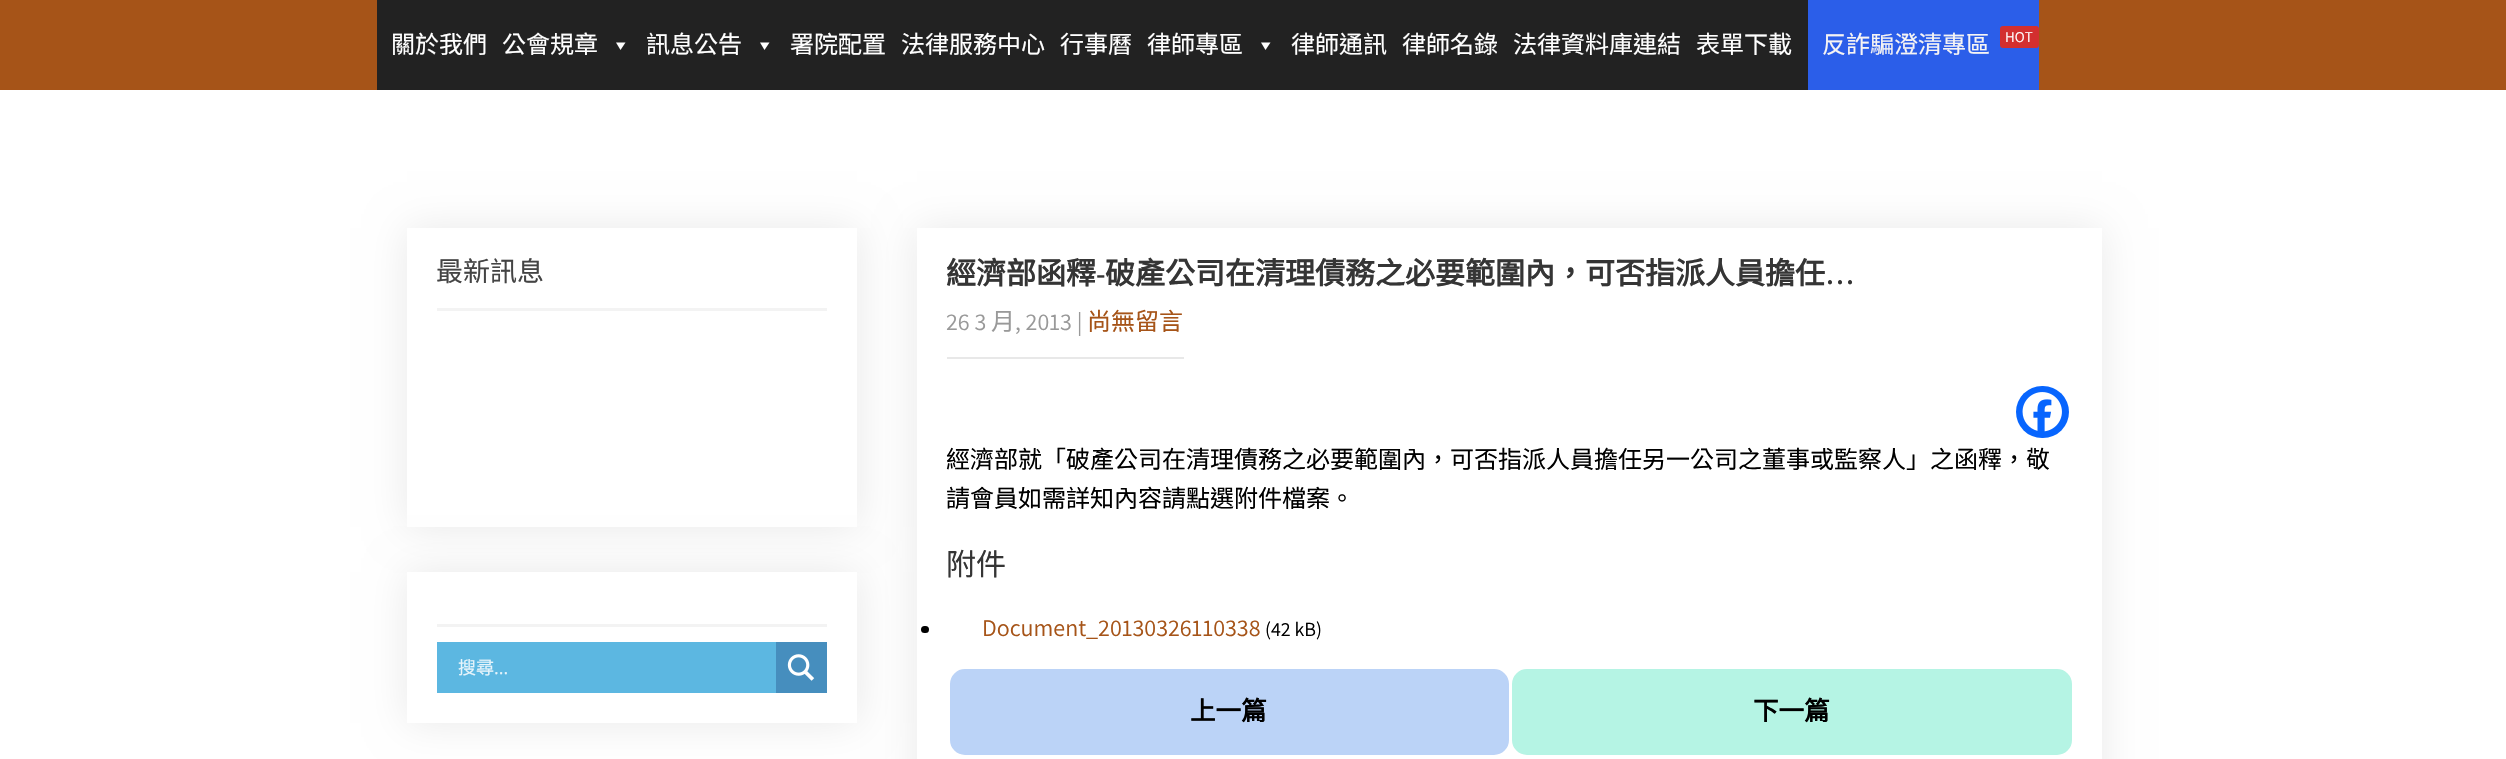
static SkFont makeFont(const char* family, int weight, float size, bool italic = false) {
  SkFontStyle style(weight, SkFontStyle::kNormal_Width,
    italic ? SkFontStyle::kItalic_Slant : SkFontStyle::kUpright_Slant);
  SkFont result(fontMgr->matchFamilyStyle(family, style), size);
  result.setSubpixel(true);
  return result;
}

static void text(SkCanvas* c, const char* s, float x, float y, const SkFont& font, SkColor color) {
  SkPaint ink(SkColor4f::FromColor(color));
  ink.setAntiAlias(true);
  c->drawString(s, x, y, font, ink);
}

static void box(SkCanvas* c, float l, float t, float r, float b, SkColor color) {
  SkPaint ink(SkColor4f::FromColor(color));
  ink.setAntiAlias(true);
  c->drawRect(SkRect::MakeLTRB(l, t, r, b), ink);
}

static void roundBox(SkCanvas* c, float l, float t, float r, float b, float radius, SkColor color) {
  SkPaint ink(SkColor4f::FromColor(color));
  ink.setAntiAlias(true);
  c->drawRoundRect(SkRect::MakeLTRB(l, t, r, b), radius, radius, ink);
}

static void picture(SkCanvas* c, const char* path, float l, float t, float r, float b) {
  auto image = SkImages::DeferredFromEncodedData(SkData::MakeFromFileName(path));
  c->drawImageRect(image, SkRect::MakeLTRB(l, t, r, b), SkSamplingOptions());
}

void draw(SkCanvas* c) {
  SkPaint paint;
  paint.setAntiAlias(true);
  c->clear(0xffffffff);
  box(c, 0, 0, 2506, 90, 0xffa65418);
  box(c, 377, 0, 1808, 90, 0xff222222);
  SkFont face1 = makeFont("Noto Sans CJK TC", 400, 24);
  text(c, "關於我們", 391, 53, face1, 0xffffffff);
  text(c, "公會規章", 502, 53, face1, 0xffffffff);
  paint.setColor(0xffffffff);
  c->drawPath(SkPathBuilder().moveTo(625.5f, 42.5f).lineTo(620.5f, 50).lineTo(616, 42.5f).close().detach(), paint);
  text(c, "訊息公告", 646, 53, face1, 0xffffffff);
  c->drawPath(SkPathBuilder().moveTo(769.5f, 42.5f).lineTo(764.5f, 50).lineTo(760, 42.5f).close().detach(), paint);
  text(c, "署院配置", 790, 53, face1, 0xffffffff);
  text(c, "法律服務中心", 901, 53, face1, 0xffffffff);
  text(c, "行事曆", 1060, 53, face1, 0xffffffff);
  text(c, "律師專區", 1147, 53, face1, 0xffffffff);
  c->drawPath(SkPathBuilder().moveTo(1270.5f, 42.5f).lineTo(1265.5f, 50).lineTo(1261, 42.5f).close().detach(), paint);
  text(c, "律師通訊", 1291, 53, face1, 0xffffffff);
  text(c, "律師名錄", 1402, 53, face1, 0xffffffff);
  text(c, "法律資料庫連結", 1513, 53, face1, 0xffffffff);
  text(c, "表單下載", 1696, 53, face1, 0xffffffff);
  box(c, 1808, 0, 2039, 90, 0xff2b5ee9);
  text(c, "反詐騙澄清專區", 1822, 53, face1, 0xfff6f4f4);
  roundBox(c, 2000, 26, 2039, 48, 3, 0xffd32f2f);
  SkFont face2 = makeFont("Assistant", 200, 15);
  text(c, "HOT", 2005, 42, face2, 0xffffffff);
  paint.setColor(0xffe9e9e9);
  paint.setMaskFilter(SkMaskFilter::MakeBlur(kNormal_SkBlurStyle, 19));
  c->drawRect(SkRect::MakeLTRB(407, 228, 857, 527), paint);
  paint.setMaskFilter(nullptr);
  box(c, 407, 228, 857, 527, 0xffffffff);
  box(c, 437, 308, 827, 311, 0xfff3f3f3);
  SkFont face3 = makeFont("Noto Sans CJK TC", 400, 27);
  text(c, "最新訊息", 436, 281, face3, 0xff444444);
  paint.setMaskFilter(SkMaskFilter::MakeBlur(kNormal_SkBlurStyle, 19));
  c->drawRect(SkRect::MakeLTRB(407, 572, 857, 723), paint);
  paint.setMaskFilter(nullptr);
  box(c, 407, 572, 857, 723, 0xffffffff);
  box(c, 437, 624, 827, 627, 0xfff3f3f3);
  box(c, 437, 642, 776, 693, 0xff5cb7e1);
  SkFont face4 = makeFont("Noto Sans CJK TC", 400, 18);
  text(c, "搜尋", 458, 674, face4, 0xffe7f4fb);
  SkFont face5 = makeFont("Open Sans", 400, 18);
  text(c, "...", 494, 674, face5, 0xffe7f4fb);
  box(c, 776, 642, 827, 693, 0xff468ebe);
  picture(c, "img_01.png", 787, 654, 815, 681);
  c->save();
  c->clipPath(SkPathBuilder(SkPathFillType::kEvenOdd).moveTo(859, 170).lineTo(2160, 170).lineTo(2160, 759).lineTo(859, 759).close().moveTo(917, 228).lineTo(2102, 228).lineTo(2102, 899).lineTo(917, 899).close().detach(), true);
  paint.setMaskFilter(SkMaskFilter::MakeBlur(kNormal_SkBlurStyle, 19));
  c->drawRect(SkRect::MakeLTRB(917, 228, 2102, 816), paint);
  paint.setMaskFilter(nullptr);
  c->restore();
  SkFont face6 = makeFont("Noto Sans CJK TC", 700, 30);
  text(c, "經濟部函釋", 946, 284, face6, 0xff353535);
  SkFont face7 = makeFont("Assistant", 600, 30);
  text(c, "-", 1096, 284, face7, 0xff353535);
  text(c, "破產公司在清理債務之必要範圍內，可否指派人員擔任", 1105, 284, face6, 0xff353535);
  text(c, "…", 1825, 284, face7, 0xff353535);
  box(c, 947, 357, 1184, 359, 0xffe8e8e8);
  SkFont face8 = makeFont("Assistant", 200, 24);
  text(c, "26 3", 946, 330, face8, 0xff999999);
  text(c, "月", 991, 330, face1, 0xff999999);
  text(c, ", 2013 |", 1015, 330, face8, 0xff999999);
  text(c, "尚無留言", 1087, 330, face1, 0xffa65418);
  roundBox(c, 2016, 386, 2069, 438, 26, 0xff0765fe);
  picture(c, "img_02.png", 2022, 392, 2062, 432);
  text(c, "經濟部就「破產公司在清理債務之必要範圍內，可否指派人員擔任另一公司之董事或監察人」之函釋，敬", 946, 468, face1, 0xff000000);
  text(c, "請會員如需詳知內容請點選附件檔案。", 946, 507, face1, 0xff000000);
  SkFont face9 = makeFont("Noto Sans CJK TC", 400, 30);
  text(c, "附件", 946, 575, face9, 0xff353535);
  roundBox(c, 921, 626, 929, 633, 3.5f, 0xff000000);
  text(c, "Document_20130326110338", 982, 636, face8, 0xffa65418);
  SkFont face10 = makeFont("Assistant", 200, 20);
  text(c, "(42 kB)", 1265, 636, face10, 0xff000000);
  paint.setColor(0xffbbd3f7);
  c->drawRoundRect(SkRect::MakeLTRB(951.5f, 670.5f, 1507.5f, 753.5f), 13.5f, 13.5f, paint);
  paint.setStyle(SkPaint::kStroke_Style);
  paint.setStrokeWidth(3);
  c->drawRoundRect(SkRect::MakeLTRB(951.5f, 670.5f, 1507.5f, 753.5f), 13.5f, 13.5f, paint);
  SkFont face11 = makeFont("Noto Sans CJK TC", 700, 25.5f);
  text(c, "上一篇", 1190, 720, face11, 0xff000000);
  paint.setStyle(SkPaint::kFill_Style);
  paint.setColor(0xffb5f4e4);
  c->drawRoundRect(SkRect::MakeLTRB(1513.5f, 670.5f, 2070.5f, 753.5f), 13.5f, 13.5f, paint);
  paint.setStyle(SkPaint::kStroke_Style);
  c->drawRoundRect(SkRect::MakeLTRB(1513.5f, 670.5f, 2070.5f, 753.5f), 13.5f, 13.5f, paint);
  text(c, "下一篇", 1753, 720, face11, 0xff000000);
}
